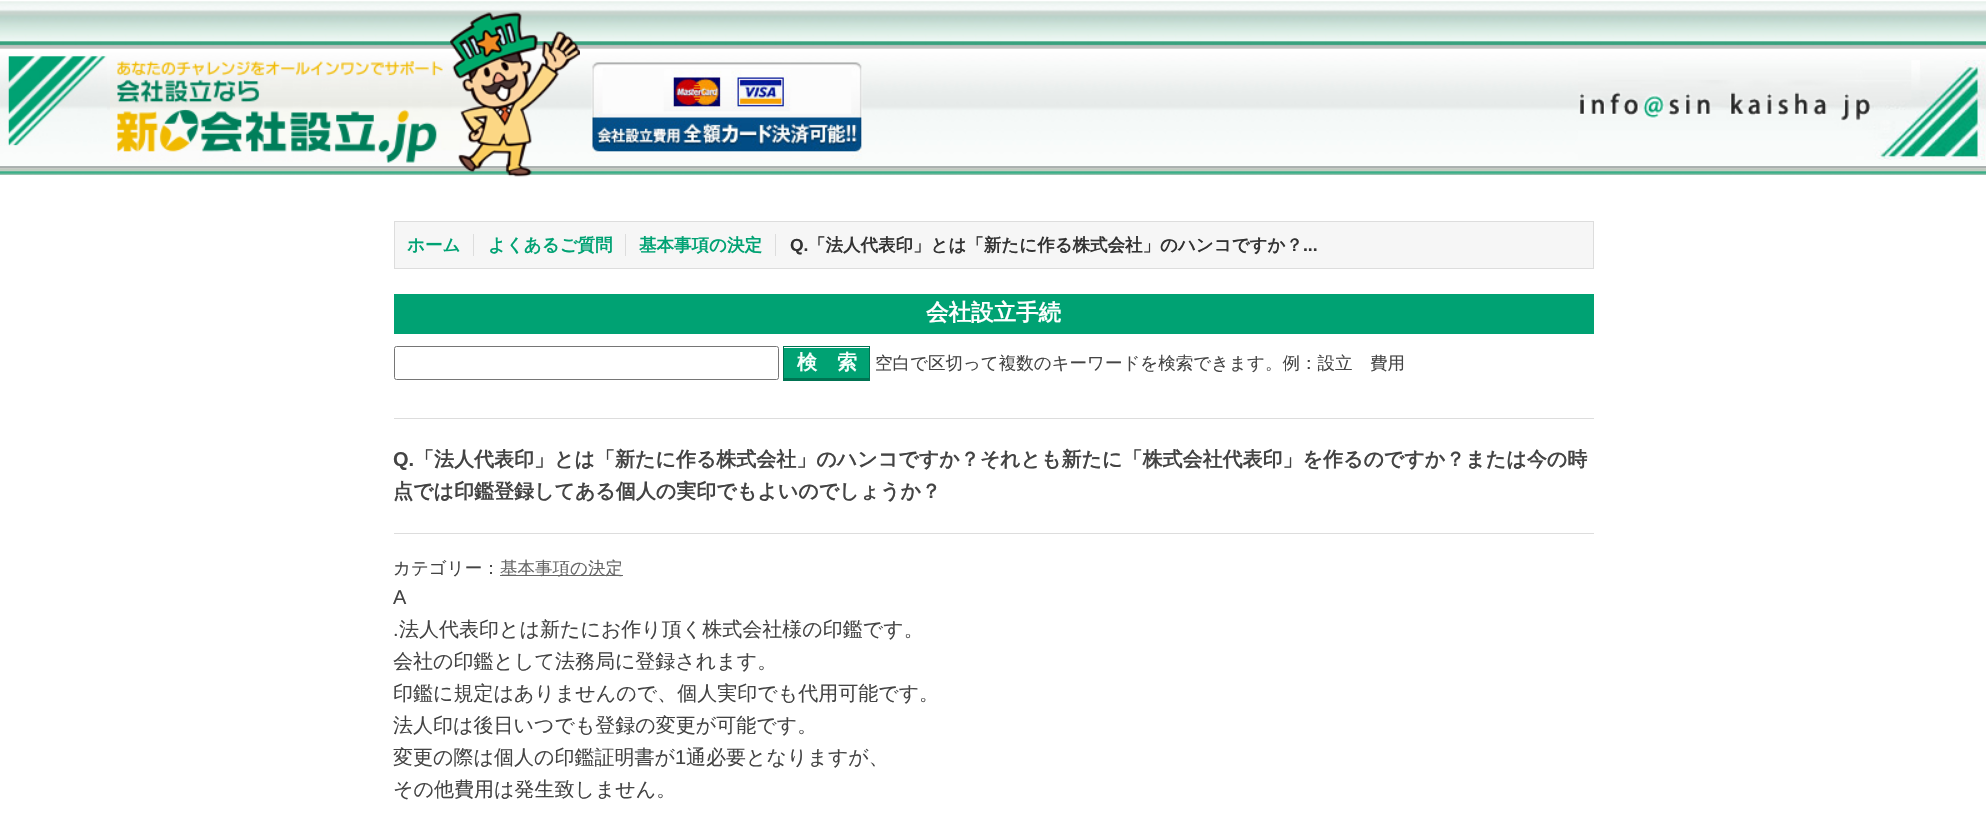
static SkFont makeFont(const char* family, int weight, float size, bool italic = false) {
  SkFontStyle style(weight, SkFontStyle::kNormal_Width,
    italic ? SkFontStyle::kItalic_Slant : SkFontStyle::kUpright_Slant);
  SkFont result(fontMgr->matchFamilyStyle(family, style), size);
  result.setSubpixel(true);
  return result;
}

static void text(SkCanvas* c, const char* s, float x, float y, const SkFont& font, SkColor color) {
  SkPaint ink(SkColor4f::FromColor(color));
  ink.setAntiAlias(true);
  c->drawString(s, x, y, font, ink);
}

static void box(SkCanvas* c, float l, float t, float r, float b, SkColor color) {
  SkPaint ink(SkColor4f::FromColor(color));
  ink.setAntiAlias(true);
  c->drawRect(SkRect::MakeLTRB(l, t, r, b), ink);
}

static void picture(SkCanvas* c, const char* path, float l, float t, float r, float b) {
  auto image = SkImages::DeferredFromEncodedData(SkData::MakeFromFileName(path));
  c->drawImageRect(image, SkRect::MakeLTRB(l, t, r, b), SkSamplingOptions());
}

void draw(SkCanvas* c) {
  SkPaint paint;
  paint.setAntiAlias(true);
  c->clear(0xffffffff);
  picture(c, "img_01.png", 0, 1, 1986, 175);
  picture(c, "img_02.png", 0, 55, 107, 146);
  picture(c, "img_04.png", 110, 60, 491, 163);
  picture(c, "img_03.png", 450, 12, 580, 177);
  picture(c, "img_05.png", 591, 62, 863, 160);
  picture(c, "img_06.png", 1578, 60, 1985, 160);
  paint.setColor(0xfff6f6f6);
  c->drawRect(SkRect::MakeLTRB(394.5f, 221.5f, 1593.5f, 268.5f), paint);
  paint.setStyle(SkPaint::kStroke_Style);
  paint.setStrokeWidth(1);
  paint.setColor(0xffdddddd);
  c->drawRect(SkRect::MakeLTRB(394.5f, 221.5f, 1593.5f, 268.5f), paint);
  box(c, 473, 234, 474, 256, 0xffdddddd);
  SkFont face1 = makeFont("WenQuanYi Zen Hei", 700, 17.5f);
  text(c, "ホーム", 407, 251, face1, 0xff00a273);
  box(c, 625, 234, 626, 256, 0xffdddddd);
  text(c, "よくあるご質問", 488, 251, face1, 0xff00a273);
  box(c, 775, 234, 776, 256, 0xffdddddd);
  text(c, "基本事項の決定", 639, 251, face1, 0xff00a273);
  SkFont face2 = makeFont("Liberation Sans", 700, 17.5f);
  text(c, "Q.", 790, 251, face2, 0xff333333);
  text(c, "「法人代表印」とは「新たに作る株式会社」のハンコですか？", 808, 251, face1, 0xff333333);
  text(c, "...", 1303, 251, face2, 0xff333333);
  box(c, 394, 294, 1594, 334, 0xff00a273);
  SkFont face3 = makeFont("WenQuanYi Zen Hei", 700, 22.5f);
  text(c, "会社設立手続", 926, 320, face3, 0xffffffff);
  paint.setColor(0xff767676);
  c->drawRoundRect(SkRect::MakeLTRB(394.5f, 346.5f, 778.5f, 379.5f), 2, 2, paint);
  box(c, 784, 348, 869, 378, 0xff00a273);
  box(c, 783, 346, 870, 347, 0xff007352);
  box(c, 869, 346, 870, 380, 0xff007352);
  box(c, 783, 378, 870, 381, 0xff007352);
  box(c, 783, 346, 784, 380, 0xff007352);
  SkFont face4 = makeFont("WenQuanYi Zen Hei", 700, 20);
  text(c, "検　索", 797, 369, face4, 0xfff5fffc);
  SkFont face5 = makeFont("WenQuanYi Zen Hei", 500, 17.5f);
  text(c, "空白で区切って複数のキーワードを検索できます。例：設立　費用", 875, 369, face5, 0xff444444);
  box(c, 394, 418, 1594, 419, 0xffdddddd);
  box(c, 394, 533, 1594, 534, 0xffdddddd);
  SkFont face6 = makeFont("Liberation Sans", 700, 20);
  text(c, "Q.", 393, 466, face6, 0xff444444);
  text(c, "「法人代表印」とは「新たに作る株式会社」のハンコですか？それとも新たに「株式会社代表印」を作るのですか？または今の時", 414, 466, face4, 0xff444444);
  text(c, "点では印鑑登録してある個人の実印でもよいのでしょうか？", 393, 498, face4, 0xff444444);
  text(c, "カテゴリー：", 393, 574, face5, 0xff444444);
  box(c, 500, 575, 623, 576, 0xff666666);
  text(c, "基本事項の決定", 500, 574, face5, 0xff666666);
  SkFont face7 = makeFont("Liberation Sans", 400, 20);
  text(c, "A", 393, 604, face7, 0xff444444);
  text(c, ".", 393, 636, face7, 0xff444444);
  SkFont face8 = makeFont("WenQuanYi Zen Hei", 500, 20);
  text(c, "法人代表印とは新たにお作り頂く株式会社様の印鑑です。", 399, 636, face8, 0xff444444);
  text(c, "会社の印鑑として法務局に登録されます。", 393, 668, face8, 0xff444444);
  text(c, "印鑑に規定はありませんので、個人実印でも代用可能です。", 393, 700, face8, 0xff444444);
  text(c, "法人印は後日いつでも登録の変更が可能です。", 393, 732, face8, 0xff444444);
  text(c, "変更の際は個人の印鑑証明書が", 393, 764, face8, 0xff444444);
  text(c, "1", 675, 764, face7, 0xff444444);
  text(c, "通必要となりますが、", 686, 764, face8, 0xff444444);
  text(c, "その他費用は発生致しません。", 393, 796, face8, 0xff444444);
}
